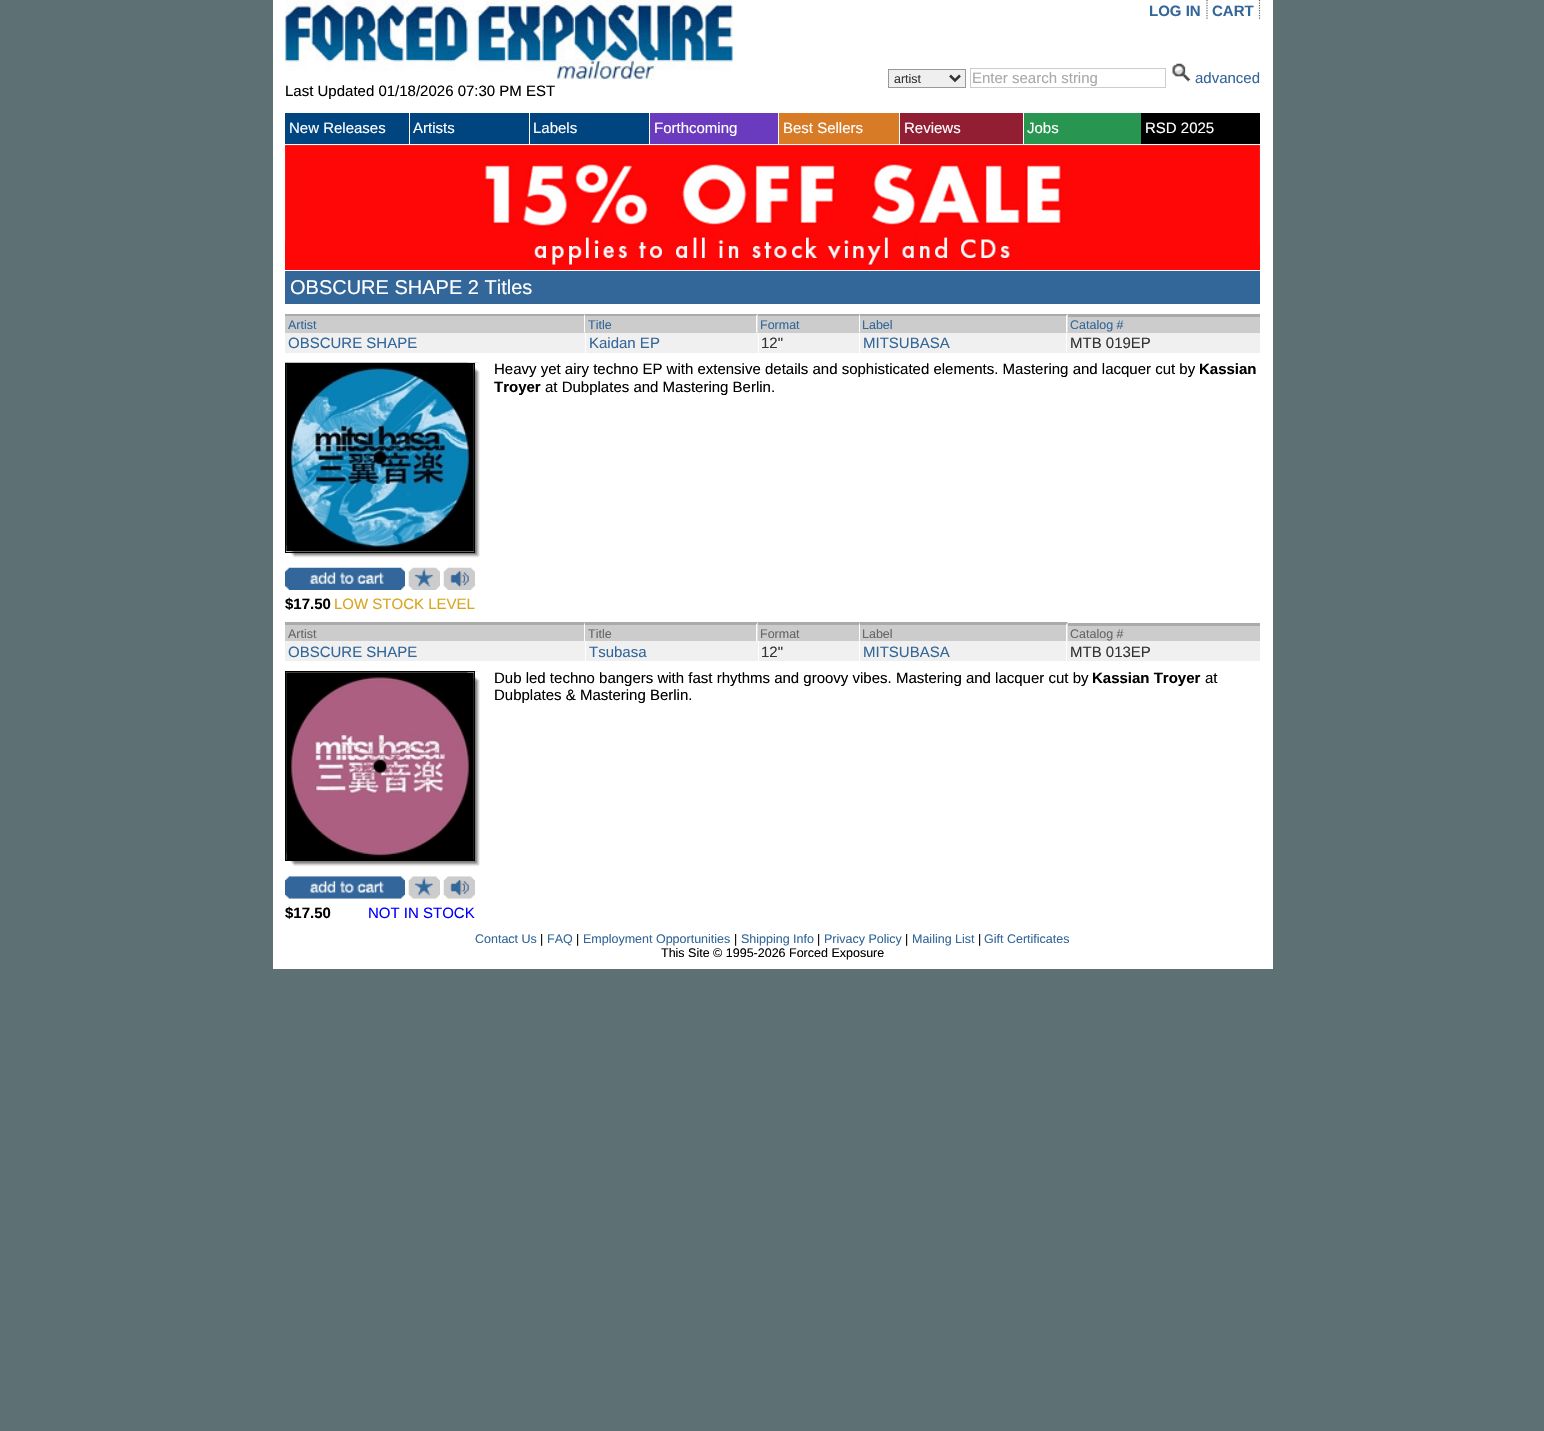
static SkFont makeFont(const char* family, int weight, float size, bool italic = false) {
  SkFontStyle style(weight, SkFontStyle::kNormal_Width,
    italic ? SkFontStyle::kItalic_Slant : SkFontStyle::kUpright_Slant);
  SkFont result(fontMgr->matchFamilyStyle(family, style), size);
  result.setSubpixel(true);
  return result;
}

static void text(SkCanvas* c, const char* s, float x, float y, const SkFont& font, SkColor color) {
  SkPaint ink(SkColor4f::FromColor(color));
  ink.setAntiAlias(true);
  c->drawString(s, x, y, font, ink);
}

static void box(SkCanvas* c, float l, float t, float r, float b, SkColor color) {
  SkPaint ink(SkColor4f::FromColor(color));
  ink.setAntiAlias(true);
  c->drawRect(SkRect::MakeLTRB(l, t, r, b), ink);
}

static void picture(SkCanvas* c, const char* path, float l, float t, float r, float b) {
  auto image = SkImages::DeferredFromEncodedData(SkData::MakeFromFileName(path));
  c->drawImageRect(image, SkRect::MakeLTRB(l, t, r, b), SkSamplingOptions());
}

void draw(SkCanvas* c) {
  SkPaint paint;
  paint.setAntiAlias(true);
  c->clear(0xff5d7073);
  box(c, 273, 0, 1273, 969, 0xffffffff);
  paint.setStyle(SkPaint::kStroke_Style);
  paint.setStrokeWidth(1.2f);
  paint.setColor(0xff666666);
  paint.setPathEffect(SkDashPathEffect::Make({{1.25f, 1.25f}}, 0));
  c->drawPath(SkPathBuilder().moveTo(1207, 0).lineTo(1207, 20).moveTo(1259.5f, 0).lineTo(1259.5f, 20).detach(), paint);
  paint.setPathEffect(nullptr);
  SkFont face1 = makeFont("Liberation Sans", 700, 15);
  text(c, "LOG IN", 1149, 16, face1, 0xff336699);
  text(c, "CART", 1212, 16, face1, 0xff336699);
  paint.setStyle(SkPaint::kFill_Style);
  paint.setColor(0xffefefef);
  c->drawRect(SkRect::MakeLTRB(888.5f, 69.5f, 965.5f, 87.5f), paint);
  paint.setStyle(SkPaint::kStroke_Style);
  paint.setStrokeWidth(1);
  paint.setColor(0xff999999);
  c->drawRect(SkRect::MakeLTRB(888.5f, 69.5f, 965.5f, 87.5f), paint);
  paint.setStrokeWidth(2.5f);
  paint.setColor(0xff333333);
  c->drawPath(SkPathBuilder().moveTo(950, 75.5f).lineTo(955, 80.5f).lineTo(960, 75.5f).detach(), paint);
  SkFont face2 = makeFont("Liberation Sans", 400, 12.5f);
  text(c, "artist", 894, 83, face2, 0xff333333);
  paint.setStrokeWidth(1);
  paint.setColor(0xffcccccc);
  c->drawRect(SkRect::MakeLTRB(970.5f, 68.5f, 1165.5f, 87.5f), paint);
  SkFont face3 = makeFont("Liberation Sans", 400, 15);
  text(c, "Enter search string", 972, 83, face3, 0xffa9a9a9);
  picture(c, "img_01.png", 1172, 63, 1191, 82);
  text(c, "advanced", 1195, 83, face3, 0xff336699);
  picture(c, "img_02.png", 285, 0, 733, 80);
  text(c, "Last Updated 01/18/2026 07:30 PM EST", 285, 96, face3, 0xff000000);
  box(c, 285, 113, 409, 144, 0xff004580);
  text(c, "New Releases", 289, 133, face3, 0xffffffff);
  box(c, 410, 113, 529, 144, 0xff004580);
  text(c, "Artists", 413, 133, face3, 0xffffffff);
  box(c, 530, 113, 649, 144, 0xff004580);
  text(c, "Labels", 533, 133, face3, 0xffffffff);
  box(c, 650, 113, 778, 144, 0xff6b3bbf);
  text(c, "Forthcoming", 654, 133, face3, 0xffffffff);
  box(c, 779, 113, 899, 144, 0xffd87b27);
  text(c, "Best Sellers", 783, 133, face3, 0xffffffff);
  box(c, 900, 113, 1023, 144, 0xff911e32);
  text(c, "Reviews", 904, 133, face3, 0xffffffff);
  box(c, 1024, 113, 1141, 144, 0xff289551);
  text(c, "Jobs", 1027, 133, face3, 0xffffffff);
  box(c, 1141, 113, 1260, 144, 0xff000000);
  text(c, "RSD 2025", 1145, 133, face3, 0xffffffff);
  picture(c, "img_03.png", 285, 145, 1260, 270);
  box(c, 285, 271, 1260, 304, 0xff336699);
  SkFont face4 = makeFont("Liberation Sans", 400, 20);
  text(c, "OBSCURE SHAPE 2 Titles", 290, 294, face4, 0xffffffff);
  box(c, 285, 314, 1068, 333, 0xffcccccc);
  paint.setStyle(SkPaint::kFill_Style);
  paint.setColor(0xffaaaaaa);
  c->drawPath(SkPathBuilder().moveTo(285, 314).lineTo(585, 314).lineTo(584, 316).lineTo(285, 316).close().detach(), paint);
  paint.setColor(0xffffffff);
  c->drawPath(SkPathBuilder().moveTo(585, 314).lineTo(585, 332.5f).lineTo(584, 332.5f).lineTo(584, 316).close().detach(), paint);
  text(c, "Artist", 288, 329, face2, 0xff336699);
  paint.setColor(0xffaaaaaa);
  c->drawPath(SkPathBuilder().moveTo(585, 314).lineTo(758, 314).lineTo(756, 316).lineTo(585, 316).close().detach(), paint);
  paint.setColor(0xffffffff);
  c->drawPath(SkPathBuilder().moveTo(757.5f, 314).lineTo(757.5f, 332.5f).lineTo(756, 332.5f).lineTo(756, 316).close().detach(), paint);
  text(c, "Title", 588, 329, face2, 0xff336699);
  paint.setColor(0xffaaaaaa);
  c->drawPath(SkPathBuilder().moveTo(758, 314).lineTo(860, 314).lineTo(859, 316).lineTo(758, 316).close().detach(), paint);
  paint.setColor(0xffffffff);
  c->drawPath(SkPathBuilder().moveTo(860, 314).lineTo(860, 332.5f).lineTo(859, 332.5f).lineTo(859, 316).close().detach(), paint);
  text(c, "Format", 760, 329, face2, 0xff336699);
  paint.setColor(0xffaaaaaa);
  c->drawPath(SkPathBuilder().moveTo(860, 314).lineTo(1068, 314).lineTo(1066, 316).lineTo(860, 316).close().detach(), paint);
  paint.setColor(0xffffffff);
  c->drawPath(SkPathBuilder().moveTo(1067.5f, 314).lineTo(1067.5f, 332.5f).lineTo(1066, 332.5f).lineTo(1066, 316).close().detach(), paint);
  text(c, "Label", 862, 329, face2, 0xff336699);
  box(c, 1068, 317, 1260, 333, 0xffcccccc);
  box(c, 1068, 314, 1260, 317, 0xffaaaaaa);
  text(c, "Catalog #", 1070, 329, face2, 0xff336699);
  box(c, 285, 333, 585, 353, 0xfff0f0f0);
  text(c, "OBSCURE SHAPE", 288, 348, face3, 0xff336699);
  box(c, 586, 333, 758, 353, 0xfff0f0f0);
  text(c, "Kaidan EP", 589, 348, face3, 0xff336699);
  box(c, 759, 333, 859, 353, 0xfff0f0f0);
  text(c, "12\"", 761, 348, face3, 0xff333333);
  box(c, 860, 333, 1260, 353, 0xfff0f0f0);
  box(c, 1066, 333, 1067, 354, 0xffffffff);
  text(c, "MITSUBASA", 863, 348, face3, 0xff336699);
  text(c, "MTB 019EP", 1070, 348, face3, 0xff333333);
  text(c, "Heavy yet airy techno EP with extensive details and sophisticated elements. Mastering and lacquer cut by", 494, 374, face3, 0xff000000);
  text(c, "Kassian", 1199, 374, face1, 0xff000000);
  text(c, "Troyer", 494, 392, face1, 0xff000000);
  text(c, "at Dubplates and Mastering Berlin.", 545, 392, face3, 0xff000000);
  picture(c, "img_04.png", 285, 362, 480, 558);
  picture(c, "img_05.png", 285, 545, 295, 558);
  picture(c, "img_06.png", 467, 362, 480, 373);
  paint.setStyle(SkPaint::kStroke_Style);
  paint.setColor(0xff000000);
  c->drawRect(SkRect::MakeLTRB(285.5f, 363.5f, 474.5f, 552.5f), paint);
  picture(c, "img_07.png", 286, 364, 474, 552);
  picture(c, "img_08.png", 285, 567, 405, 590);
  picture(c, "img_09.png", 408, 567, 440, 590);
  picture(c, "img_10.png", 443, 567, 475, 590);
  text(c, "$17.50", 285, 609, face1, 0xff000000);
  text(c, "LOW STOCK LEVEL", 334, 609, face3, 0xffdaa520);
  box(c, 285, 623, 1068, 641, 0xffcccccc);
  paint.setStyle(SkPaint::kFill_Style);
  paint.setColor(0xffaaaaaa);
  c->drawPath(SkPathBuilder().moveTo(285, 622).lineTo(585, 622).lineTo(584, 625).lineTo(285, 625).close().detach(), paint);
  paint.setColor(0xffffffff);
  c->drawPath(SkPathBuilder().moveTo(585, 622.5f).lineTo(585, 641).lineTo(584, 641).lineTo(584, 625).close().detach(), paint);
  text(c, "Artist", 288, 638, face2, 0xff666666);
  paint.setColor(0xffaaaaaa);
  c->drawPath(SkPathBuilder().moveTo(585, 622).lineTo(758, 622).lineTo(756, 625).lineTo(585, 625).close().detach(), paint);
  paint.setColor(0xffffffff);
  c->drawPath(SkPathBuilder().moveTo(757.5f, 622.5f).lineTo(757.5f, 641).lineTo(756, 641).lineTo(756, 625).close().detach(), paint);
  text(c, "Title", 588, 638, face2, 0xff666666);
  paint.setColor(0xffaaaaaa);
  c->drawPath(SkPathBuilder().moveTo(758, 622).lineTo(860, 622).lineTo(859, 625).lineTo(758, 625).close().detach(), paint);
  paint.setColor(0xffffffff);
  c->drawPath(SkPathBuilder().moveTo(860, 622.5f).lineTo(860, 641).lineTo(859, 641).lineTo(859, 625).close().detach(), paint);
  text(c, "Format", 760, 638, face2, 0xff666666);
  paint.setColor(0xffaaaaaa);
  c->drawPath(SkPathBuilder().moveTo(860, 622).lineTo(1068, 622).lineTo(1066, 625).lineTo(860, 625).close().detach(), paint);
  paint.setColor(0xffffffff);
  c->drawPath(SkPathBuilder().moveTo(1067.5f, 622.5f).lineTo(1067.5f, 641).lineTo(1066, 641).lineTo(1066, 625).close().detach(), paint);
  text(c, "Label", 862, 638, face2, 0xff666666);
  box(c, 1068, 626, 1260, 641, 0xffcccccc);
  box(c, 1068, 623, 1260, 626, 0xffaaaaaa);
  text(c, "Catalog #", 1070, 638, face2, 0xff666666);
  box(c, 285, 641, 585, 661, 0xfff0f0f0);
  text(c, "OBSCURE SHAPE", 288, 657, face3, 0xff336699);
  box(c, 586, 641, 758, 661, 0xfff0f0f0);
  text(c, "Tsubasa", 589, 657, face3, 0xff336699);
  box(c, 759, 641, 859, 661, 0xfff0f0f0);
  text(c, "12\"", 761, 657, face3, 0xff333333);
  box(c, 860, 641, 1260, 661, 0xfff0f0f0);
  box(c, 1066, 641, 1067, 663, 0xffffffff);
  text(c, "MITSUBASA", 863, 657, face3, 0xff336699);
  text(c, "MTB 013EP", 1070, 657, face3, 0xff333333);
  text(c, "Dub led techno bangers with fast rhythms and groovy vibes. Mastering and lacquer cut by", 494, 683, face3, 0xff000000);
  text(c, "Kassian Troyer", 1092, 683, face1, 0xff000000);
  text(c, "at", 1205, 683, face3, 0xff000000);
  text(c, "Dubplates & Mastering Berlin.", 494, 700, face3, 0xff000000);
  picture(c, "img_11.png", 285, 671, 480, 867);
  picture(c, "img_12.png", 285, 853, 295, 866);
  picture(c, "img_13.png", 467, 671, 480, 682);
  paint.setStyle(SkPaint::kStroke_Style);
  paint.setColor(0xff000000);
  c->drawRect(SkRect::MakeLTRB(285.5f, 671.5f, 474.5f, 860.5f), paint);
  picture(c, "img_14.png", 286, 672, 474, 860);
  picture(c, "img_15.png", 285, 876, 405, 899);
  picture(c, "img_16.png", 408, 876, 440, 899);
  picture(c, "img_17.png", 443, 876, 475, 899);
  text(c, "$17.50", 285, 918, face1, 0xff000000);
  text(c, "NOT IN STOCK", 368, 918, face3, 0xff0000ff);
  text(c, "Contact Us", 475, 943, face2, 0xff336699);
  text(c, "|", 540, 943, face2, 0xff000000);
  text(c, "FAQ", 547, 943, face2, 0xff336699);
  text(c, "|", 576, 943, face2, 0xff000000);
  text(c, "Employment Opportunities", 583, 943, face2, 0xff336699);
  text(c, "|", 734, 943, face2, 0xff000000);
  text(c, "Shipping Info", 741, 943, face2, 0xff336699);
  text(c, "|", 817, 943, face2, 0xff000000);
  text(c, "Privacy Policy", 824, 943, face2, 0xff336699);
  text(c, "|", 905, 943, face2, 0xff000000);
  text(c, "Mailing List", 912, 943, face2, 0xff336699);
  text(c, "|", 978, 943, face2, 0xff000000);
  text(c, "Gift Certificates", 984, 943, face2, 0xff336699);
  text(c, "This Site © 1995-2026 Forced Exposure", 661, 957, face2, 0xff000000);
}
